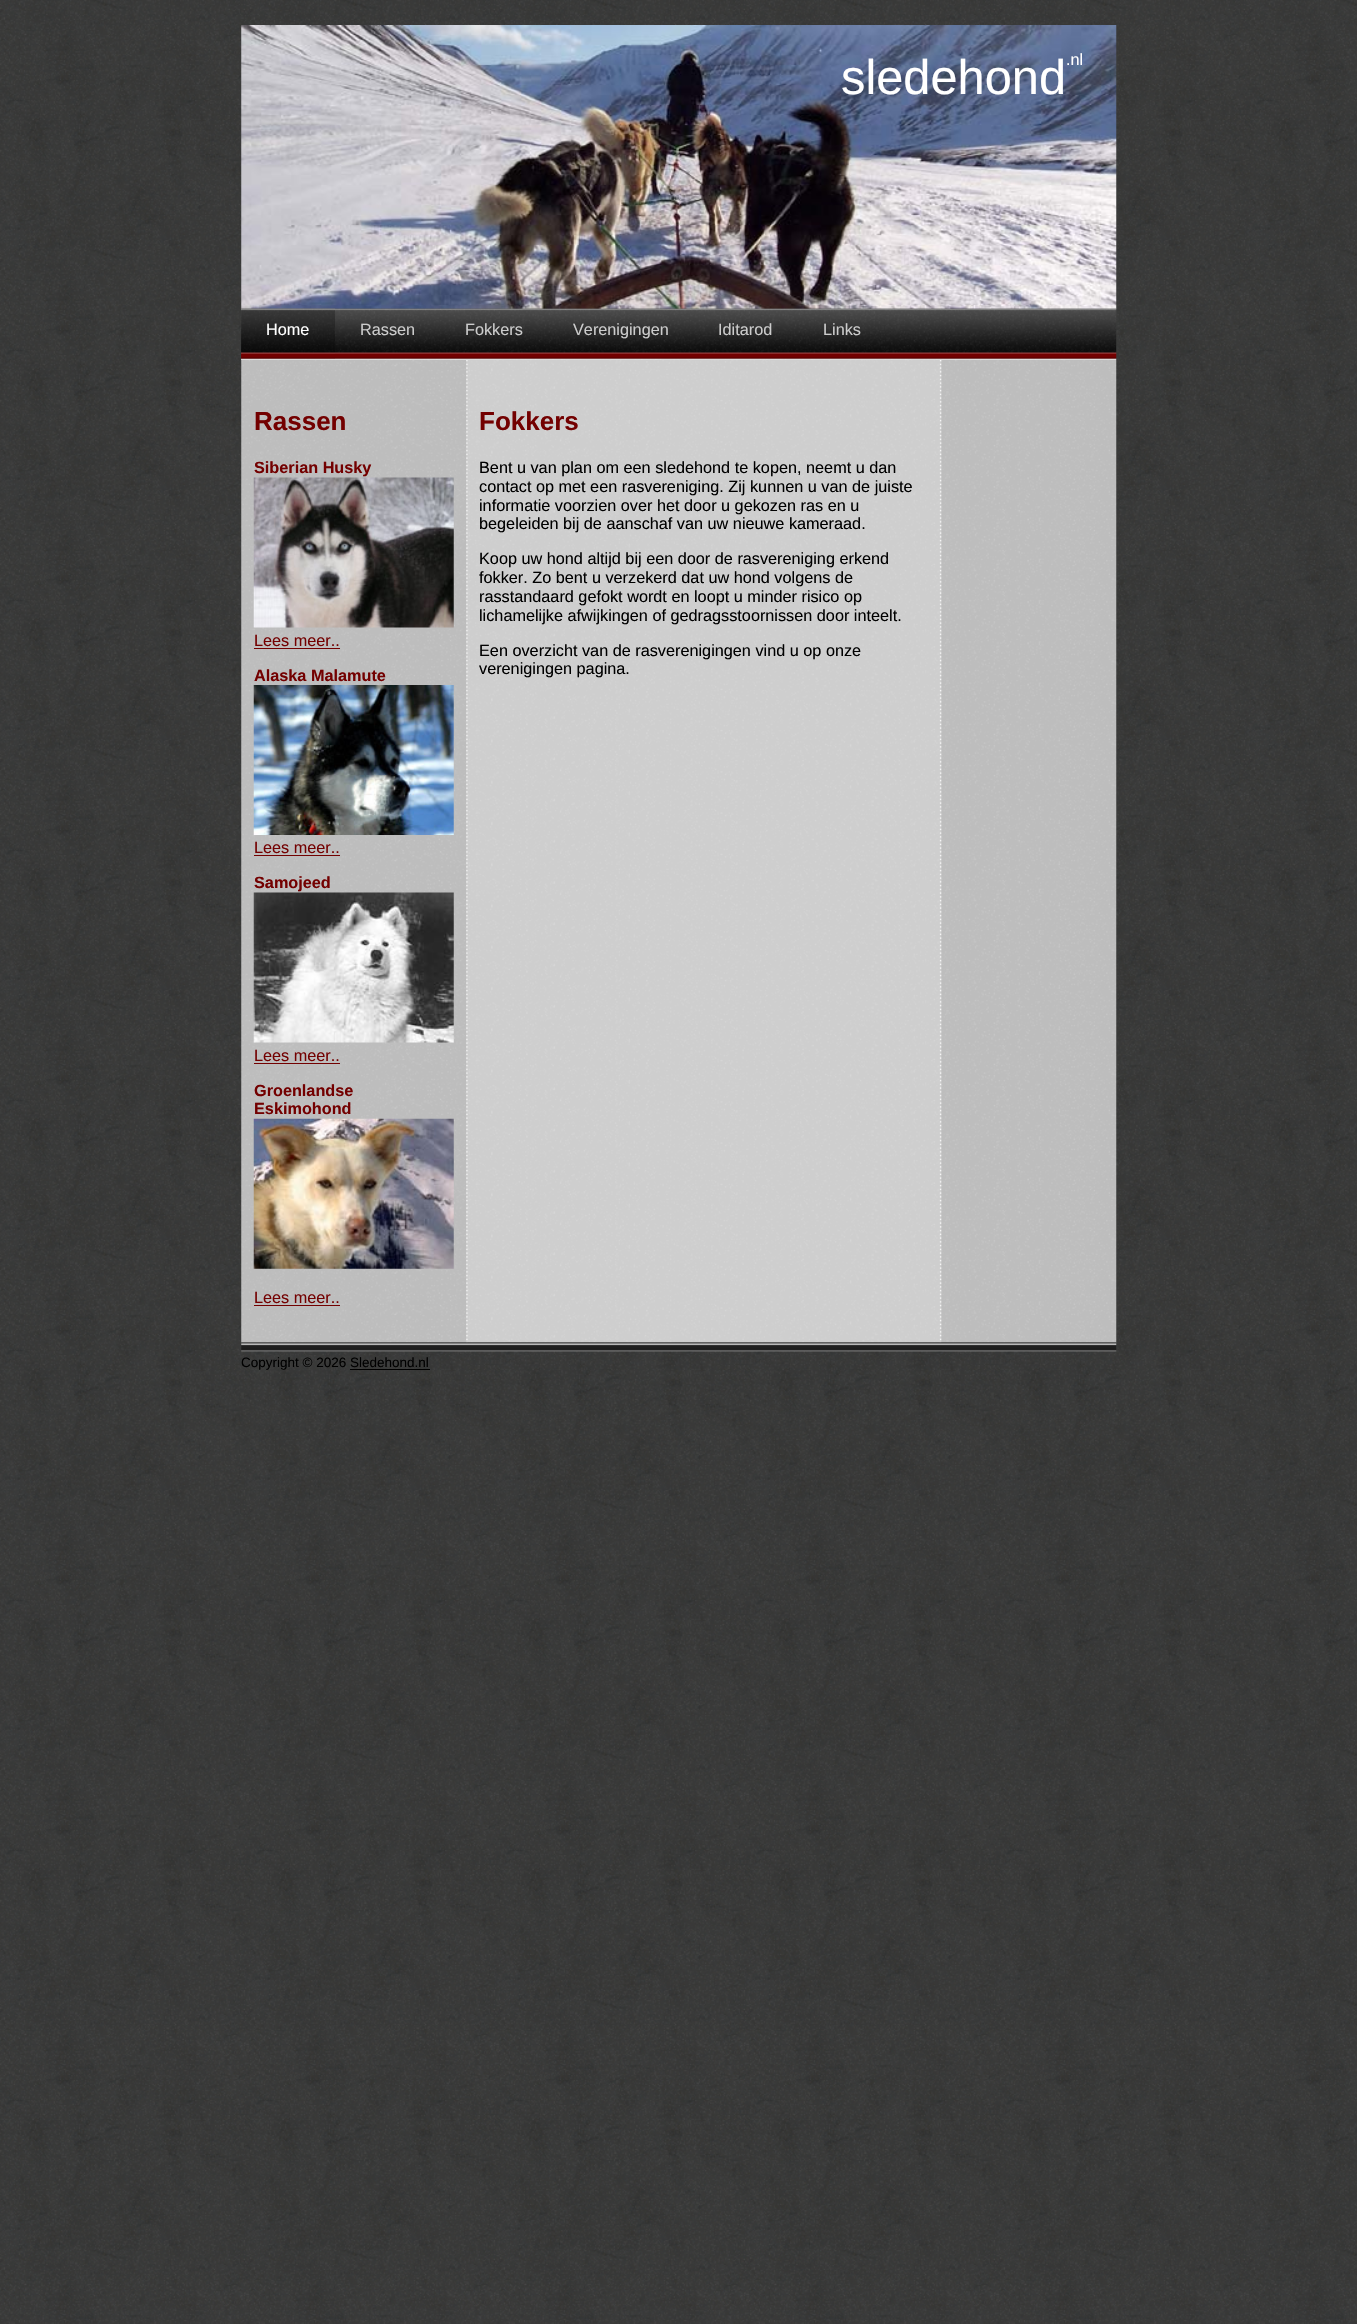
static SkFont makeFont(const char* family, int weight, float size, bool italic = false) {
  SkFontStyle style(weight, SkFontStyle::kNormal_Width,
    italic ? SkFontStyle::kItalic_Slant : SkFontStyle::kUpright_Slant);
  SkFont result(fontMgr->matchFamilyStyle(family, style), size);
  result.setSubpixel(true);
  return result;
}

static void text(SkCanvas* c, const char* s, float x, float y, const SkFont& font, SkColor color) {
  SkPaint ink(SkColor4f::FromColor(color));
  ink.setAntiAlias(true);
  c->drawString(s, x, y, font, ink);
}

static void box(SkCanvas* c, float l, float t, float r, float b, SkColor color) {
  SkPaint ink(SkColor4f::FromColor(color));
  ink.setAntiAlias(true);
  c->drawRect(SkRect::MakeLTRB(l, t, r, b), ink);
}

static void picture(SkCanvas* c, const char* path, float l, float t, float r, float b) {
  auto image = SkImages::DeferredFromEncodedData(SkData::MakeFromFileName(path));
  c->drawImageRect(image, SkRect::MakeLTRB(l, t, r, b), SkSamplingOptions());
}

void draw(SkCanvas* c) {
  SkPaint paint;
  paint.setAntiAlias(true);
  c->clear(0xffffffff);
  picture(c, "img_01.png", 0, 0, 1357, 2324);
  picture(c, "img_02.png", 241, 25, 1117, 309);
  SkFont face1 = makeFont("Liberation Sans", 400, 48.75f);
  text(c, "sledehond", 841, 94, face1, 0xffffffff);
  SkFont face2 = makeFont("Liberation Sans", 400, 16.25f);
  text(c, ".nl", 1066, 65, face2, 0xffffffff);
  picture(c, "img_03.png", 241, 308, 1117, 360);
  picture(c, "img_04.png", 241, 308, 335, 360);
  text(c, "Home", 266, 335, face2, 0xffffffff);
  text(c, "Rassen", 360, 335, face2, 0xffcccccc);
  text(c, "Fokkers", 465, 335, face2, 0xffcccccc);
  text(c, "Verenigingen", 573, 335, face2, 0xffcccccc);
  text(c, "Iditarod", 718, 335, face2, 0xffcccccc);
  text(c, "Links", 823, 335, face2, 0xffcccccc);
  picture(c, "img_05.png", 241, 360, 1117, 1343);
  SkFont face3 = makeFont("Liberation Sans", 700, 26);
  text(c, "Rassen", 254, 430, face3, 0xff730000);
  SkFont face4 = makeFont("Liberation Sans", 700, 16.25f);
  text(c, "Siberian Husky", 254, 473, face4, 0xff730000);
  picture(c, "img_06.png", 253, 477, 454, 628);
  text(c, "Lees meer..", 254, 646, face2, 0xff730000);
  box(c, 254, 648, 340, 649, 0xff730000);
  text(c, "Alaska Malamute", 254, 681, face4, 0xff730000);
  picture(c, "img_07.png", 253, 685, 454, 835);
  text(c, "Lees meer..", 254, 853, face2, 0xff730000);
  box(c, 254, 855, 340, 856, 0xff730000);
  text(c, "Samojeed", 254, 888, face4, 0xff730000);
  picture(c, "img_08.png", 253, 892, 454, 1043);
  text(c, "Lees meer..", 254, 1061, face2, 0xff730000);
  box(c, 254, 1063, 340, 1064, 0xff730000);
  text(c, "Groenlandse", 254, 1096, face4, 0xff730000);
  text(c, "Eskimohond", 254, 1114, face4, 0xff730000);
  picture(c, "img_09.png", 253, 1118, 454, 1269);
  text(c, "Lees meer..", 254, 1303, face2, 0xff730000);
  box(c, 254, 1305, 340, 1306, 0xff730000);
  text(c, "Fokkers", 479, 430, face3, 0xff730000);
  text(c, "Bent u van plan om een sledehond te kopen, neemt u dan", 479, 473, face2, 0xff000000);
  text(c, "contact op met een rasvereniging. Zij kunnen u van de juiste", 479, 492, face2, 0xff000000);
  text(c, "informatie voorzien over het door u gekozen ras en u", 479, 511, face2, 0xff000000);
  text(c, "begeleiden bij de aanschaf van uw nieuwe kameraad.", 479, 529, face2, 0xff000000);
  text(c, "Koop uw hond altijd bij een door de rasvereniging erkend", 479, 564, face2, 0xff000000);
  text(c, "fokker. Zo bent u verzekerd dat uw hond volgens de", 479, 583, face2, 0xff000000);
  text(c, "rasstandaard gefokt wordt en loopt u minder risico op", 479, 602, face2, 0xff000000);
  text(c, "lichamelijke afwijkingen of gedragsstoornissen door inteelt.", 479, 621, face2, 0xff000000);
  text(c, "Een overzicht van de rasverenigingen vind u op onze", 479, 656, face2, 0xff000000);
  text(c, "verenigingen pagina.", 479, 674, face2, 0xff000000);
  picture(c, "img_10.png", 241, 1342, 1117, 1352);
  SkFont face5 = makeFont("Liberation Sans", 400, 13.5f);
  text(c, "Copyright © 2026 Sledehond.nl", 241, 1367, face5, 0xff000000);
  box(c, 350, 1369, 430, 1370, 0xff000000);
}
